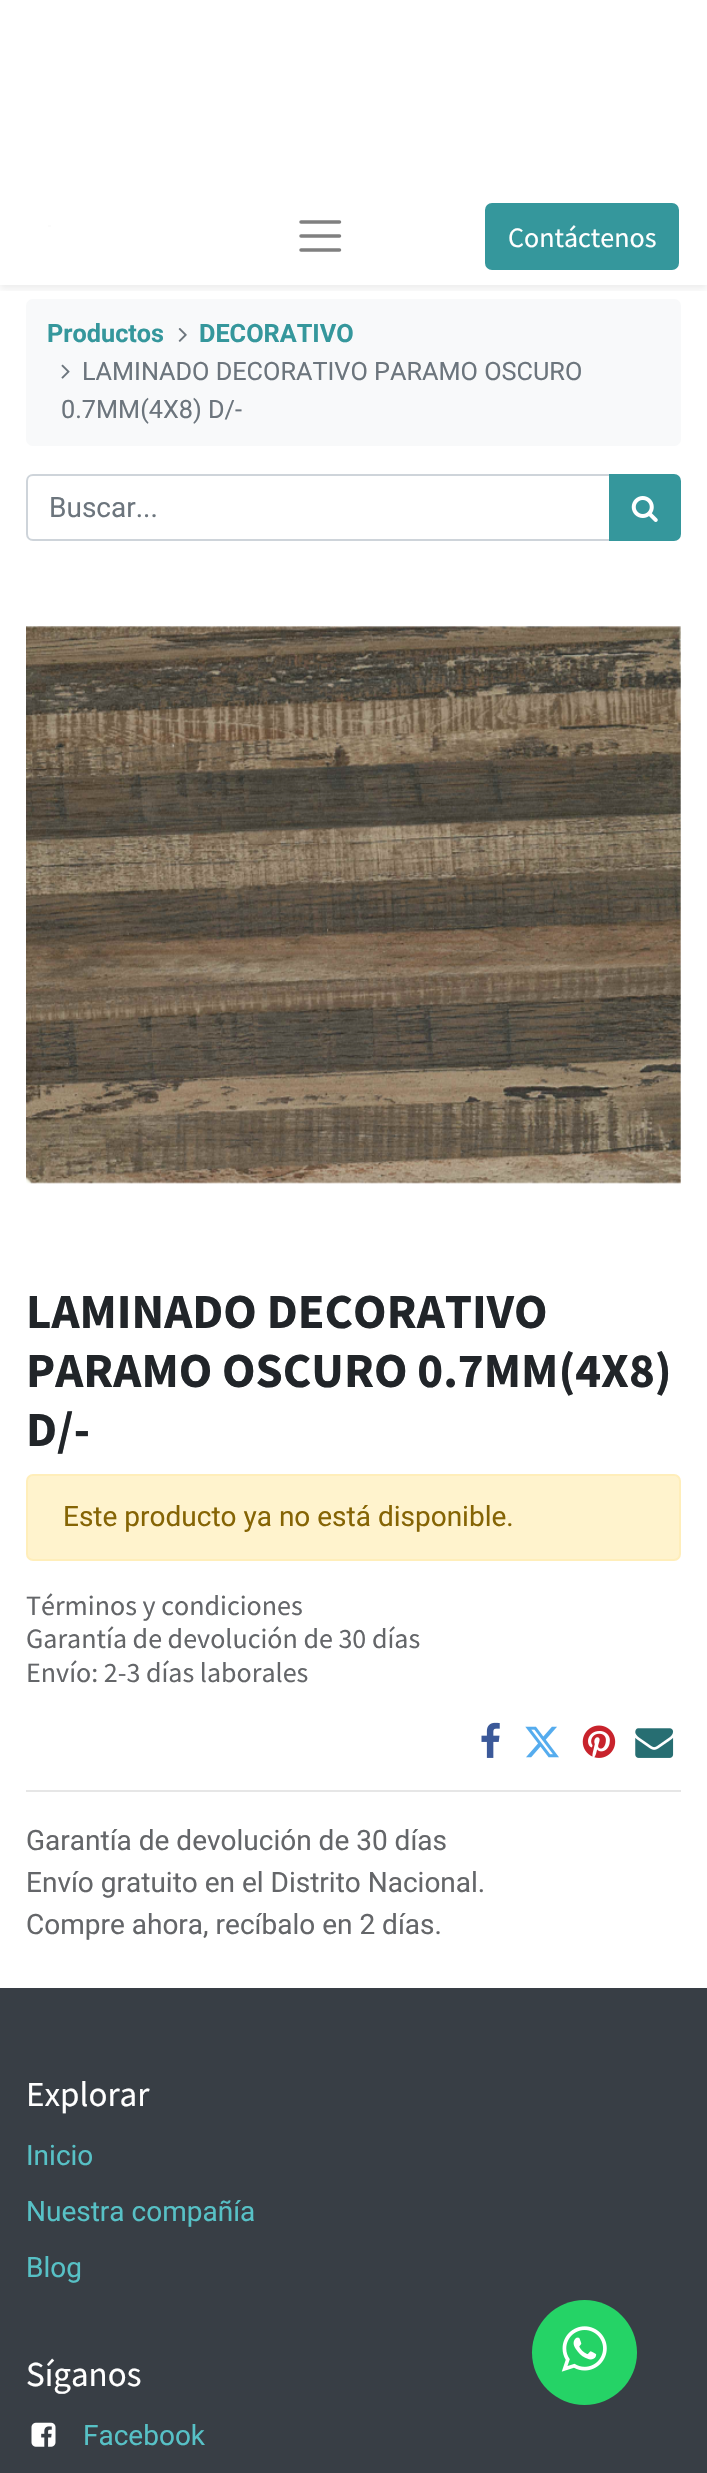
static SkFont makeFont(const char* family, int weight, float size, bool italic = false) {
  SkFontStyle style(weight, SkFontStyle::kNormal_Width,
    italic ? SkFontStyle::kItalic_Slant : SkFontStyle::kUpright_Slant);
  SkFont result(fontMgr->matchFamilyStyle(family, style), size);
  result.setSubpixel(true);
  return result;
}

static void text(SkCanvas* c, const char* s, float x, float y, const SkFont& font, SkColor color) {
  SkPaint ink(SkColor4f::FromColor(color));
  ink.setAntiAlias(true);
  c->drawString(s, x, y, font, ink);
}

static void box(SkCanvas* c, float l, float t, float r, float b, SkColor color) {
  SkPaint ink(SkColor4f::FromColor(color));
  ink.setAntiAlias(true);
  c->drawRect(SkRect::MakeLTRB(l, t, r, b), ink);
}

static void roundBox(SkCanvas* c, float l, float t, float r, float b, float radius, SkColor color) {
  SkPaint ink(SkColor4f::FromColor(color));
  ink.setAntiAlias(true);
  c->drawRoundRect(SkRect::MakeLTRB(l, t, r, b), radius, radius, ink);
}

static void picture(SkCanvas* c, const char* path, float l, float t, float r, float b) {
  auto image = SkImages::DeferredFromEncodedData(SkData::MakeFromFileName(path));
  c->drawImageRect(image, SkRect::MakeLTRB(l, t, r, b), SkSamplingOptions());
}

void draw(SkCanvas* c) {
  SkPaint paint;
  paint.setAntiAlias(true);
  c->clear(0xffffffff);
  roundBox(c, 26, 299, 681, 446, 7, 0xfff8f9fa);
  c->save();
  c->clipRect(SkRect::MakeLTRB(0, 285, 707, 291));
  paint.setColor(0x12000000);
  paint.setMaskFilter(SkMaskFilter::MakeBlur(kNormal_SkBlurStyle, 3.5f));
  c->drawRect(SkRect::MakeLTRB(0, 191, 707, 289), paint);
  paint.setMaskFilter(nullptr);
  c->restore();
  box(c, 48, 225, 51, 227, 0xfffbfbfb);
  paint.setStyle(SkPaint::kStroke_Style);
  paint.setStrokeWidth(3.5f);
  paint.setStrokeCap(SkPaint::kRound_Cap);
  paint.setColor(0xff808080);
  c->drawPath(SkPathBuilder().moveTo(301, 222).lineTo(339.5f, 222).moveTo(301, 236).lineTo(339.5f, 236).moveTo(301, 250).lineTo(339.5f, 250).detach(), paint);
  paint.setStyle(SkPaint::kFill_Style);
  paint.setColor(0xff35979c);
  c->drawRoundRect(SkRect::MakeLTRB(486, 204, 678, 269), 6, 6, paint);
  paint.setStyle(SkPaint::kStroke_Style);
  paint.setStrokeWidth(2);
  paint.setStrokeCap(SkPaint::kButt_Cap);
  c->drawRoundRect(SkRect::MakeLTRB(486, 204, 678, 269), 6, 6, paint);
  SkFont face1 = makeFont("Source Sans Pro", 400, 28);
  text(c, "Contáctenos", 508, 247, face1, 0xffffffff);
  SkFont face2 = makeFont("Roboto", 700, 25.25f);
  text(c, "Productos", 47, 342, face2, 0xff35979c);
  picture(c, "img_01.png", 178, 328, 187, 342);
  text(c, "DECORATIVO", 199, 342, face2, 0xff35979c);
  picture(c, "img_02.png", 61, 364, 70, 379);
  SkFont face3 = makeFont("Roboto", 400, 25.25f);
  text(c, "LAMINADO DECORATIVO PARAMO OSCURO", 82, 380, face3, 0xff6c757d);
  text(c, "0.7MM(4X8) D/-", 61, 418, face3, 0xff6c757d);
  paint.setColor(0xffced4da);
  c->drawPath(SkPathBuilder().moveTo(33, 475).lineTo(610, 475).lineTo(610, 540).lineTo(33, 540).cubicTo(29.5f, 540, 27, 537.5f, 27, 534).lineTo(27, 481).cubicTo(27, 477.5f, 29.5f, 475, 33, 475).close().detach(), paint);
  SkFont face4 = makeFont("Roboto", 400, 28);
  text(c, "Buscar...", 49, 517, face4, 0xff6c757d);
  paint.setStyle(SkPaint::kFill_Style);
  paint.setColor(0xff35979c);
  c->drawPath(SkPathBuilder().moveTo(610, 475).lineTo(674, 475).cubicTo(677.5f, 475, 680, 477.5f, 680, 481).lineTo(680, 534).cubicTo(680, 537.5f, 677.5f, 540, 674, 540).lineTo(610, 540).close().detach(), paint);
  paint.setStyle(SkPaint::kStroke_Style);
  c->drawPath(SkPathBuilder().moveTo(610, 475).lineTo(674, 475).cubicTo(677.5f, 475, 680, 477.5f, 680, 481).lineTo(680, 534).cubicTo(680, 537.5f, 677.5f, 540, 674, 540).lineTo(610, 540).close().detach(), paint);
  picture(c, "img_03.png", 631, 496, 658, 522);
  picture(c, "img_04.png", 26, 626, 681, 1184);
  SkFont face5 = makeFont("Source Sans Pro", 700, 49);
  text(c, "LAMINADO DECORATIVO", 26, 1328, face5, 0xff212529);
  text(c, "PARAMO OSCURO 0.7MM(4X8)", 26, 1387, face5, 0xff212529);
  text(c, "D/-", 26, 1446, face5, 0xff212529);
  paint.setStyle(SkPaint::kFill_Style);
  paint.setColor(0xfffff3cd);
  c->drawRoundRect(SkRect::MakeLTRB(27, 1475, 680, 1560), 6, 6, paint);
  paint.setStyle(SkPaint::kStroke_Style);
  paint.setColor(0xffffeeba);
  c->drawRoundRect(SkRect::MakeLTRB(27, 1475, 680, 1560), 6, 6, paint);
  text(c, "Este producto ya no está disponible.", 63, 1526, face4, 0xff856404);
  text(c, "Términos y condiciones", 26, 1615, face1, 0xff646669);
  text(c, "Garantía de devolución de 30 días", 26, 1648, face1, 0xff646669);
  text(c, "Envío: 2-3 días laborales", 26, 1682, face1, 0xff646669);
  picture(c, "img_05.png", 481, 1722, 500, 1758);
  picture(c, "img_06.png", 525, 1726, 559, 1758);
  picture(c, "img_07.png", 582, 1725, 616, 1758);
  picture(c, "img_08.png", 635, 1728, 674, 1758);
  box(c, 26, 1790, 681, 1792, 0xffe6e6e6);
  text(c, "Garantía de devolución de 30 días", 26, 1850, face4, 0xff646669);
  text(c, "Envío gratuito en el Distrito Nacional.", 26, 1892, face4, 0xff646669);
  text(c, "Compre ahora, recíbalo en 2 días.", 26, 1934, face4, 0xff646669);
  box(c, 0, 1988, 707, 2473, 0xff383e45);
  SkFont face6 = makeFont("Source Sans Pro", 400, 35);
  text(c, "Explorar", 26, 2106, face6, 0xffffffff);
  text(c, "Inicio", 26, 2165, face4, 0xff57c1c6);
  text(c, "Nuestra compañía", 26, 2221, face4, 0xff57c1c6);
  text(c, "Blog", 26, 2277, face4, 0xff57c1c6);
  text(c, "Síganos", 26, 2386, face6, 0xffffffff);
  picture(c, "img_09.png", 31, 2422, 56, 2447);
  text(c, "Facebook", 83, 2445, face4, 0xff57c1c6);
  paint.setStyle(SkPaint::kFill_Style);
  paint.setColor(0xff25d366);
  c->drawCircle(584.5f, 2352.5f, 52.5f, paint);
  picture(c, "img_10.png", 561, 2326, 607, 2372);
}
